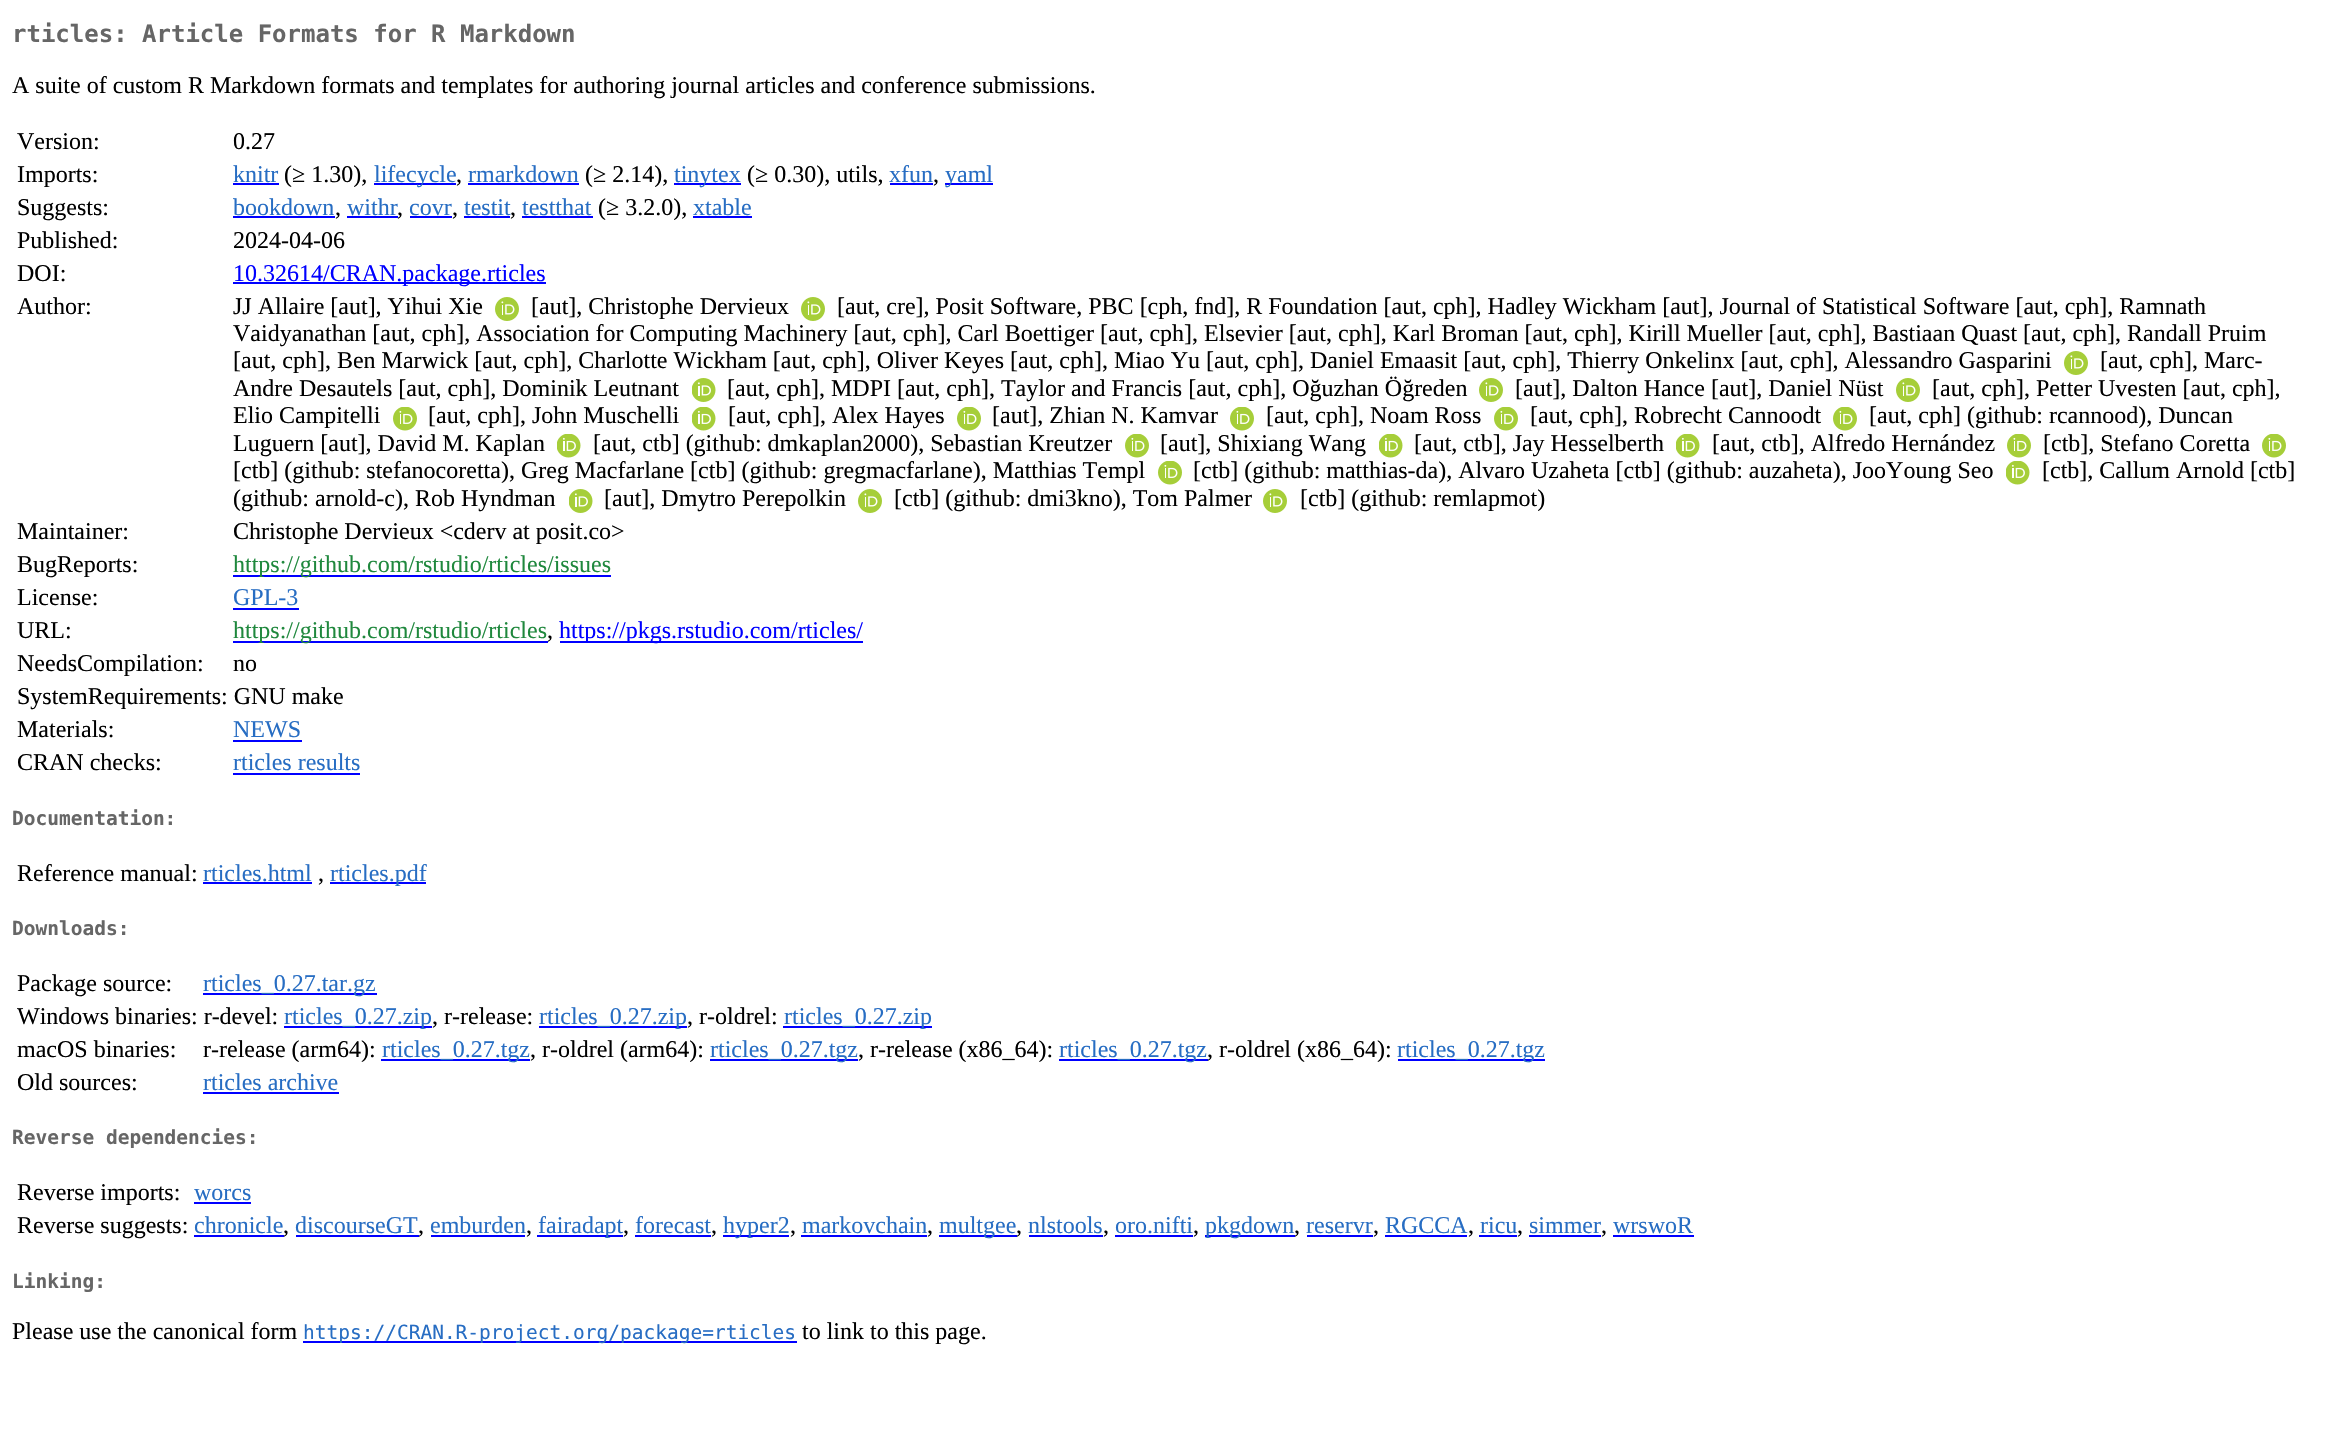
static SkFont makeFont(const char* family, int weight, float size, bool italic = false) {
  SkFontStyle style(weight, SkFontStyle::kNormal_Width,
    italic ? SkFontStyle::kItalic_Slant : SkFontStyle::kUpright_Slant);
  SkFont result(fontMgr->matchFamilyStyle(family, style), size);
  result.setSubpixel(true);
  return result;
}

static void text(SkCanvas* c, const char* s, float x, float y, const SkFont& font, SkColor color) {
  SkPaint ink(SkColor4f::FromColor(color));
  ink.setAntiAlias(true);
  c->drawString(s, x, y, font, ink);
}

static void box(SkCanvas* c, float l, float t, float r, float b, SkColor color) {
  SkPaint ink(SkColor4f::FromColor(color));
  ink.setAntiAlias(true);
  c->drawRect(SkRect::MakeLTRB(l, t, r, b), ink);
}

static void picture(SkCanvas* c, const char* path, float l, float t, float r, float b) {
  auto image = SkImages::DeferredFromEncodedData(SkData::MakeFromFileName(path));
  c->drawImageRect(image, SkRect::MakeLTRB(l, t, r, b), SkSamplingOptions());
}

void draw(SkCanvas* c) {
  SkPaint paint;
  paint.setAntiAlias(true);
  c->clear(0xffffffff);
  SkFont face1 = makeFont("DejaVu Sans Mono", 700, 24);
  text(c, "rticles: Article Formats for R Markdown", 12, 42, face1, 0xff666666);
  SkFont face2 = makeFont("Liberation Serif", 400, 24);
  text(c, "A suite of custom R Markdown formats and templates for authoring journal articles and conference submissions.", 12, 93, face2, 0xff000000);
  text(c, "Version:", 17, 149, face2, 0xff000000);
  text(c, "0.27", 233, 149, face2, 0xff000000);
  text(c, "Imports:", 17, 182, face2, 0xff000000);
  text(c, "knitr", 233, 182, face2, 0xff276dc3);
  box(c, 233, 183, 279, 185, 0xff0000ff);
  text(c, "(≥ 1.30),", 284, 182, face2, 0xff000000);
  box(c, 374, 183, 456, 185, 0xff0000ff);
  text(c, "lifecycle", 374, 182, face2, 0xff276dc3);
  text(c, ",", 456, 182, face2, 0xff000000);
  text(c, "rmarkdown", 468, 182, face2, 0xff276dc3);
  box(c, 468, 183, 579, 185, 0xff0000ff);
  text(c, "(≥ 2.14),", 585, 182, face2, 0xff000000);
  box(c, 674, 183, 741, 185, 0xff0000ff);
  text(c, "tinytex", 674, 182, face2, 0xff276dc3);
  text(c, "(≥ 0.30), utils,", 747, 182, face2, 0xff000000);
  text(c, "xfun", 889, 182, face2, 0xff276dc3);
  box(c, 890, 183, 933, 185, 0xff0000ff);
  text(c, ",", 933, 182, face2, 0xff000000);
  box(c, 945, 183, 993, 185, 0xff0000ff);
  text(c, "yaml", 945, 182, face2, 0xff276dc3);
  text(c, "Suggests:", 17, 215, face2, 0xff000000);
  text(c, "bookdown", 233, 215, face2, 0xff276dc3);
  box(c, 233, 216, 335, 218, 0xff0000ff);
  text(c, ",", 335, 215, face2, 0xff000000);
  text(c, "withr", 347, 215, face2, 0xff276dc3);
  box(c, 347, 216, 398, 218, 0xff0000ff);
  text(c, ",", 397, 215, face2, 0xff000000);
  text(c, "covr", 409, 215, face2, 0xff276dc3);
  box(c, 410, 216, 452, 218, 0xff0000ff);
  text(c, ",", 452, 215, face2, 0xff000000);
  text(c, "testit", 464, 215, face2, 0xff276dc3);
  box(c, 464, 216, 510, 218, 0xff0000ff);
  text(c, ",", 510, 215, face2, 0xff000000);
  text(c, "testthat", 522, 215, face2, 0xff276dc3);
  box(c, 522, 216, 593, 218, 0xff0000ff);
  text(c, "(≥ 3.2.0),", 598, 215, face2, 0xff000000);
  text(c, "xtable", 693, 215, face2, 0xff276dc3);
  box(c, 693, 216, 752, 218, 0xff0000ff);
  text(c, "Published:", 17, 248, face2, 0xff000000);
  text(c, "2024-04-06", 233, 248, face2, 0xff000000);
  text(c, "DOI:", 17, 281, face2, 0xff000000);
  box(c, 233, 282, 546, 284, 0xff0000ff);
  text(c, "10.32614/CRAN.package.rticles", 233, 281, face2, 0xff0000ff);
  text(c, "Author:", 17, 314, face2, 0xff000000);
  text(c, "JJ Allaire [aut], Yihui Xie", 233, 314, face2, 0xff000000);
  picture(c, "img_01.png", 495, 297, 519, 321);
  text(c, "[aut], Christophe Dervieux", 531, 314, face2, 0xff000000);
  picture(c, "img_01.png", 801, 297, 825, 321);
  text(c, "[aut, cre], Posit Software, PBC [cph, fnd], R Foundation [aut, cph], Hadley Wickham [aut], Journal of Statistical Software [aut, cph], Ramnath", 837, 314, face2, 0xff000000);
  text(c, "Vaidyanathan [aut, cph], Association for Computing Machinery [aut, cph], Carl Boettiger [aut, cph], Elsevier [aut, cph], Karl Broman [aut, cph], Kirill Mueller [aut, cph], Bastiaan Quast [aut, cph], Randall Pruim", 233, 341, face2, 0xff000000);
  text(c, "[aut, cph], Ben Marwick [aut, cph], Charlotte Wickham [aut, cph], Oliver Keyes [aut, cph], Miao Yu [aut, cph], Daniel Emaasit [aut, cph], Thierry Onkelinx [aut, cph], Alessandro Gasparini", 233, 368, face2, 0xff000000);
  picture(c, "img_01.png", 2064, 351, 2088, 375);
  text(c, "[aut, cph], Marc-", 2100, 368, face2, 0xff000000);
  text(c, "Andre Desautels [aut, cph], Dominik Leutnant", 233, 396, face2, 0xff000000);
  picture(c, "img_02.png", 692, 378, 716, 402);
  text(c, "[aut, cph], MDPI [aut, cph], Taylor and Francis [aut, cph], Oğuzhan Öğreden", 727, 396, face2, 0xff000000);
  picture(c, "img_01.png", 1479, 378, 1503, 402);
  text(c, "[aut], Dalton Hance [aut], Daniel Nüst", 1515, 396, face2, 0xff000000);
  picture(c, "img_01.png", 1896, 378, 1920, 402);
  text(c, "[aut, cph], Petter Uvesten [aut, cph],", 1932, 396, face2, 0xff000000);
  text(c, "Elio Campitelli", 233, 423, face2, 0xff000000);
  picture(c, "img_03.png", 393, 407, 417, 431);
  text(c, "[aut, cph], John Muschelli", 428, 423, face2, 0xff000000);
  picture(c, "img_04.png", 692, 407, 716, 431);
  text(c, "[aut, cph], Alex Hayes", 728, 423, face2, 0xff000000);
  picture(c, "img_03.png", 957, 407, 981, 431);
  text(c, "[aut], Zhian N. Kamvar", 992, 423, face2, 0xff000000);
  picture(c, "img_03.png", 1230, 407, 1254, 431);
  text(c, "[aut, cph], Noam Ross", 1266, 423, face2, 0xff000000);
  picture(c, "img_03.png", 1494, 407, 1518, 431);
  text(c, "[aut, cph], Robrecht Cannoodt", 1530, 423, face2, 0xff000000);
  picture(c, "img_03.png", 1833, 407, 1857, 431);
  text(c, "[aut, cph] (github: rcannood), Duncan", 1869, 423, face2, 0xff000000);
  text(c, "Luguern [aut], David M. Kaplan", 233, 451, face2, 0xff000000);
  picture(c, "img_04.png", 557, 434, 581, 458);
  text(c, "[aut, ctb] (github: dmkaplan2000), Sebastian Kreutzer", 593, 451, face2, 0xff000000);
  picture(c, "img_03.png", 1125, 434, 1149, 458);
  text(c, "[aut], Shixiang Wang", 1160, 451, face2, 0xff000000);
  picture(c, "img_04.png", 1379, 434, 1403, 458);
  text(c, "[aut, ctb], Jay Hesselberth", 1414, 451, face2, 0xff000000);
  picture(c, "img_04.png", 1676, 434, 1700, 458);
  text(c, "[aut, ctb], Alfredo Hernández", 1712, 451, face2, 0xff000000);
  picture(c, "img_03.png", 2007, 434, 2031, 458);
  text(c, "[ctb], Stefano Coretta", 2043, 451, face2, 0xff000000);
  picture(c, "img_03.png", 2262, 434, 2286, 458);
  text(c, "[ctb] (github: stefanocoretta), Greg Macfarlane [ctb] (github: gregmacfarlane), Matthias Templ", 233, 478, face2, 0xff000000);
  picture(c, "img_03.png", 1158, 461, 1182, 485);
  text(c, "[ctb] (github: matthias-da), Alvaro Uzaheta [ctb] (github: auzaheta), JooYoung Seo", 1193, 478, face2, 0xff000000);
  picture(c, "img_04.png", 2006, 461, 2030, 485);
  text(c, "[ctb], Callum Arnold [ctb]", 2042, 478, face2, 0xff000000);
  text(c, "(github: arnold-c), Rob Hyndman", 233, 506, face2, 0xff000000);
  picture(c, "img_02.png", 569, 489, 593, 513);
  text(c, "[aut], Dmytro Perepolkin", 604, 506, face2, 0xff000000);
  picture(c, "img_01.png", 858, 489, 882, 513);
  text(c, "[ctb] (github: dmi3kno), Tom Palmer", 894, 506, face2, 0xff000000);
  picture(c, "img_01.png", 1263, 489, 1287, 513);
  text(c, "[ctb] (github: remlapmot)", 1300, 506, face2, 0xff000000);
  text(c, "Maintainer:", 17, 539, face2, 0xff000000);
  text(c, "Christophe Dervieux <cderv at posit.co>", 233, 539, face2, 0xff000000);
  text(c, "BugReports:", 17, 572, face2, 0xff000000);
  box(c, 233, 575, 611, 577, 0xff0000ff);
  text(c, "https://github.com/rstudio/rticles/issues", 233, 572, face2, 0xff1f883d);
  text(c, "License:", 17, 605, face2, 0xff000000);
  text(c, "GPL-3", 233, 605, face2, 0xff276dc3);
  box(c, 233, 608, 299, 610, 0xff0000ff);
  text(c, "URL:", 17, 638, face2, 0xff000000);
  box(c, 233, 641, 548, 643, 0xff0000ff);
  text(c, "https://github.com/rstudio/rticles", 233, 638, face2, 0xff1f883d);
  text(c, ",", 547, 638, face2, 0xff000000);
  box(c, 560, 641, 863, 643, 0xff0000ff);
  text(c, "https://pkgs.rstudio.com/rticles/", 559, 638, face2, 0xff0000ff);
  text(c, "NeedsCompilation:", 17, 671, face2, 0xff000000);
  text(c, "no", 233, 671, face2, 0xff000000);
  text(c, "SystemRequirements: GNU make", 17, 704, face2, 0xff000000);
  text(c, "Materials:", 17, 737, face2, 0xff000000);
  text(c, "NEWS", 233, 737, face2, 0xff276dc3);
  box(c, 233, 740, 302, 742, 0xff0000ff);
  text(c, "CRAN checks:", 17, 770, face2, 0xff000000);
  text(c, "rticles results", 233, 770, face2, 0xff276dc3);
  box(c, 233, 773, 360, 775, 0xff0000ff);
  SkFont face3 = makeFont("DejaVu Sans Mono", 700, 19.5f);
  text(c, "Documentation:", 12, 825, face3, 0xff666666);
  text(c, "Reference manual:", 17, 881, face2, 0xff000000);
  text(c, "rticles.html", 203, 881, face2, 0xff276dc3);
  box(c, 203, 882, 312, 884, 0xff0000ff);
  text(c, ",", 318, 881, face2, 0xff000000);
  box(c, 330, 882, 426, 884, 0xff0000ff);
  text(c, "rticles.pdf", 330, 881, face2, 0xff276dc3);
  text(c, "Downloads:", 12, 935, face3, 0xff666666);
  text(c, "Package source:", 17, 991, face2, 0xff000000);
  box(c, 203, 993, 377, 995, 0xff0000ff);
  text(c, "rticles_0.27.tar.gz", 203, 991, face2, 0xff276dc3);
  text(c, "Windows binaries: r-devel:", 17, 1024, face2, 0xff000000);
  box(c, 284, 1026, 432, 1028, 0xff0000ff);
  text(c, "rticles_0.27.zip", 284, 1024, face2, 0xff276dc3);
  text(c, ", r-release:", 432, 1024, face2, 0xff000000);
  box(c, 539, 1026, 687, 1028, 0xff0000ff);
  text(c, "rticles_0.27.zip", 539, 1024, face2, 0xff276dc3);
  text(c, ", r-oldrel:", 687, 1024, face2, 0xff000000);
  box(c, 783, 1026, 932, 1028, 0xff0000ff);
  text(c, "rticles_0.27.zip", 784, 1024, face2, 0xff276dc3);
  text(c, "macOS binaries:", 17, 1057, face2, 0xff000000);
  text(c, "r-release (arm64):", 203, 1057, face2, 0xff000000);
  box(c, 381, 1059, 530, 1061, 0xff0000ff);
  text(c, "rticles_0.27.tgz", 382, 1057, face2, 0xff276dc3);
  text(c, ", r-oldrel (arm64):", 530, 1057, face2, 0xff000000);
  box(c, 710, 1059, 858, 1061, 0xff0000ff);
  text(c, "rticles_0.27.tgz", 710, 1057, face2, 0xff276dc3);
  text(c, ", r-release (x86_64):", 858, 1057, face2, 0xff000000);
  box(c, 1059, 1059, 1208, 1061, 0xff0000ff);
  text(c, "rticles_0.27.tgz", 1059, 1057, face2, 0xff276dc3);
  text(c, ", r-oldrel (x86_64):", 1207, 1057, face2, 0xff000000);
  box(c, 1398, 1059, 1545, 1061, 0xff0000ff);
  text(c, "rticles_0.27.tgz", 1397, 1057, face2, 0xff276dc3);
  text(c, "Old sources:", 17, 1090, face2, 0xff000000);
  text(c, "rticles archive", 203, 1090, face2, 0xff276dc3);
  box(c, 203, 1092, 339, 1094, 0xff0000ff);
  text(c, "Reverse dependencies:", 12, 1144, face3, 0xff666666);
  text(c, "Reverse imports:", 17, 1200, face2, 0xff000000);
  text(c, "worcs", 194, 1200, face2, 0xff276dc3);
  box(c, 194, 1202, 251, 1204, 0xff0000ff);
  text(c, "Reverse suggests:", 17, 1233, face2, 0xff000000);
  text(c, "chronicle", 194, 1233, face2, 0xff276dc3);
  box(c, 194, 1235, 284, 1237, 0xff0000ff);
  text(c, ",", 283, 1233, face2, 0xff000000);
  text(c, "discourseGT", 295, 1233, face2, 0xff276dc3);
  box(c, 296, 1235, 419, 1237, 0xff0000ff);
  text(c, ",", 418, 1233, face2, 0xff000000);
  text(c, "emburden", 430, 1233, face2, 0xff276dc3);
  box(c, 431, 1235, 525, 1237, 0xff0000ff);
  text(c, ",", 526, 1233, face2, 0xff000000);
  box(c, 537, 1235, 623, 1237, 0xff0000ff);
  text(c, "fairadapt", 538, 1233, face2, 0xff276dc3);
  text(c, ",", 623, 1233, face2, 0xff000000);
  text(c, "forecast", 635, 1233, face2, 0xff276dc3);
  box(c, 635, 1235, 711, 1237, 0xff0000ff);
  text(c, ",", 711, 1233, face2, 0xff000000);
  box(c, 723, 1235, 789, 1237, 0xff0000ff);
  text(c, "hyper2", 723, 1233, face2, 0xff276dc3);
  text(c, ",", 790, 1233, face2, 0xff000000);
  text(c, "markovchain", 802, 1233, face2, 0xff276dc3);
  box(c, 801, 1235, 927, 1237, 0xff0000ff);
  text(c, ",", 927, 1233, face2, 0xff000000);
  box(c, 939, 1235, 1017, 1237, 0xff0000ff);
  text(c, "multgee", 939, 1233, face2, 0xff276dc3);
  text(c, ",", 1016, 1233, face2, 0xff000000);
  text(c, "nlstools", 1028, 1233, face2, 0xff276dc3);
  box(c, 1029, 1235, 1103, 1237, 0xff0000ff);
  text(c, ",", 1103, 1233, face2, 0xff000000);
  text(c, "oro.nifti", 1115, 1233, face2, 0xff276dc3);
  box(c, 1115, 1235, 1193, 1237, 0xff0000ff);
  text(c, ",", 1193, 1233, face2, 0xff000000);
  box(c, 1205, 1235, 1295, 1237, 0xff0000ff);
  text(c, "pkgdown", 1205, 1233, face2, 0xff276dc3);
  text(c, ",", 1294, 1233, face2, 0xff000000);
  text(c, "reservr", 1306, 1233, face2, 0xff276dc3);
  box(c, 1307, 1235, 1373, 1237, 0xff0000ff);
  text(c, ",", 1373, 1233, face2, 0xff000000);
  text(c, "RGCCA", 1385, 1233, face2, 0xff276dc3);
  box(c, 1385, 1235, 1467, 1237, 0xff0000ff);
  text(c, ",", 1468, 1233, face2, 0xff000000);
  text(c, "ricu", 1480, 1233, face2, 0xff276dc3);
  box(c, 1479, 1235, 1517, 1237, 0xff0000ff);
  text(c, ",", 1517, 1233, face2, 0xff000000);
  text(c, "simmer", 1529, 1233, face2, 0xff276dc3);
  box(c, 1529, 1235, 1601, 1237, 0xff0000ff);
  text(c, ",", 1601, 1233, face2, 0xff000000);
  text(c, "wrswoR", 1613, 1233, face2, 0xff276dc3);
  box(c, 1613, 1235, 1694, 1237, 0xff0000ff);
  text(c, "Linking:", 12, 1288, face3, 0xff666666);
  text(c, "Please use the canonical form", 12, 1339, face2, 0xff000000);
  box(c, 303, 1341, 797, 1343, 0xff0000ff);
  SkFont face4 = makeFont("DejaVu Sans Mono", 400, 19.5f);
  text(c, "https://CRAN.R-project.org/package=rticles", 303, 1339, face4, 0xff276dc3);
  text(c, "to link to this page.", 802, 1339, face2, 0xff000000);
}
